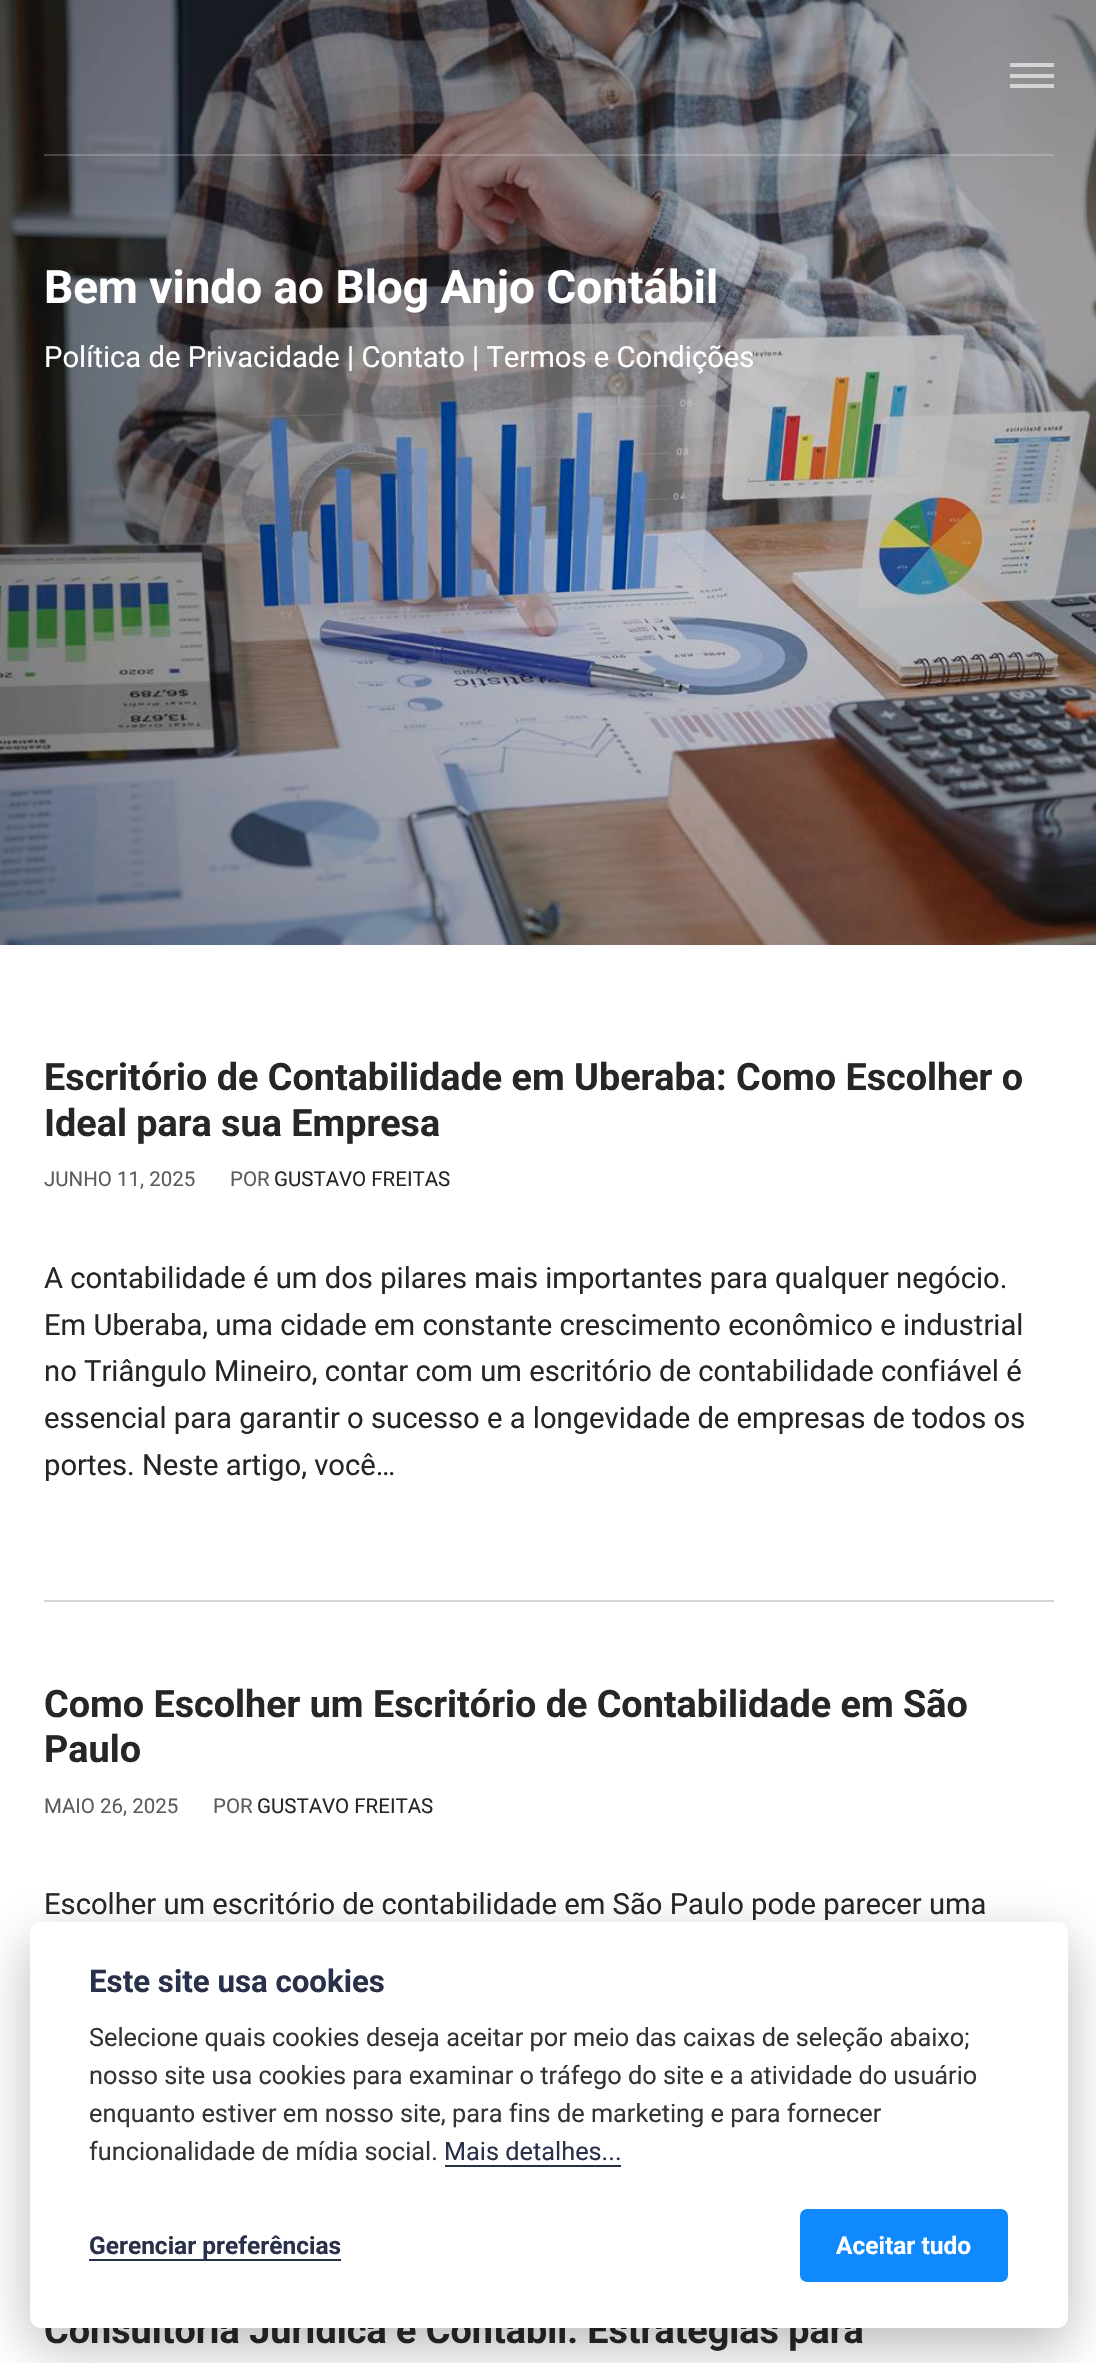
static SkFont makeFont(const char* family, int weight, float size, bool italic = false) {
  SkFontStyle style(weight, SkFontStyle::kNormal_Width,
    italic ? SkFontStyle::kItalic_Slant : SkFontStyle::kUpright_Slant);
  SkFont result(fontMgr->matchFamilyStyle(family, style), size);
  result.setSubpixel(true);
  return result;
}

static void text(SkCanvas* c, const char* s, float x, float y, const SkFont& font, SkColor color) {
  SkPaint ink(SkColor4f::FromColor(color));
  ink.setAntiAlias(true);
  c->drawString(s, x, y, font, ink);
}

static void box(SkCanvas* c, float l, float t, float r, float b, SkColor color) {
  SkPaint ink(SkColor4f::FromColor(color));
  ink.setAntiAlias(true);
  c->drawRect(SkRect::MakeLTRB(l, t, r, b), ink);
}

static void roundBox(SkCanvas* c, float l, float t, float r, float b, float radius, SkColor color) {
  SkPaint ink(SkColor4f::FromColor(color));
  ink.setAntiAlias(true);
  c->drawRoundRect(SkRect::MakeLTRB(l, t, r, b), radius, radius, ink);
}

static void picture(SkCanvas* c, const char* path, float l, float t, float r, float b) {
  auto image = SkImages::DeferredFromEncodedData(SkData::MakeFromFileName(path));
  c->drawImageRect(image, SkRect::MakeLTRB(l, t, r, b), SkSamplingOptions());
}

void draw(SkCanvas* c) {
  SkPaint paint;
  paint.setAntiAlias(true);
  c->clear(0xffffffff);
  picture(c, "img_01.png", 0, 0, 1096, 945);
  box(c, 44, 154, 1054, 156, 0x33ffffff);
  box(c, 1010, 74, 1054, 78, 0xffd5d5d5);
  box(c, 1010, 63, 1054, 67, 0xffd5d5d5);
  box(c, 1010, 84, 1054, 88, 0xffd5d5d5);
  SkFont face1 = makeFont("Roboto", 700, 45.9f);
  text(c, "Bem vindo ao Blog Anjo Contábil", 44, 303, face1, 0xffffffff);
  SkFont face2 = makeFont("Roboto", 400, 29.2f);
  text(c, "Política de Privacidade | Contato | Termos e Condições", 44, 367, face2, 0xffffffff);
  SkFont face3 = makeFont("Roboto", 700, 37.75f);
  text(c, "Escritório de Contabilidade em Uberaba: Como Escolher o", 44, 1090, face3, 0xff262626);
  text(c, "Ideal para sua Empresa", 44, 1136, face3, 0xff262626);
  SkFont face4 = makeFont("Roboto", 400, 20.5f);
  text(c, "JUNHO 11, 2025", 44, 1186, face4, 0xff5c5c5c);
  text(c, "POR", 230, 1186, face4, 0xff5c5c5c);
  text(c, "GUSTAVO FREITAS", 274, 1186, face4, 0xff262626);
  text(c, "A contabilidade é um dos pilares mais importantes para qualquer negócio.", 44, 1288, face2, 0xff262626);
  text(c, "Em Uberaba, uma cidade em constante crescimento econômico e industrial", 44, 1335, face2, 0xff262626);
  text(c, "no Triângulo Mineiro, contar com um escritório de contabilidade confiável é", 44, 1381, face2, 0xff262626);
  text(c, "essencial para garantir o sucesso e a longevidade de empresas de todos os", 44, 1428, face2, 0xff262626);
  text(c, "portes. Neste artigo, você…", 44, 1475, face2, 0xff262626);
  box(c, 44, 1600, 1054, 1602, 0xffd5d5d5);
  text(c, "Como Escolher um Escritório de Contabilidade em São", 44, 1717, face3, 0xff262626);
  text(c, "Paulo", 44, 1762, face3, 0xff262626);
  text(c, "MAIO 26, 2025", 44, 1813, face4, 0xff5c5c5c);
  text(c, "POR", 213, 1813, face4, 0xff5c5c5c);
  text(c, "GUSTAVO FREITAS", 257, 1813, face4, 0xff262626);
  text(c, "Escolher um escritório de contabilidade em São Paulo pode parecer uma", 44, 1914, face2, 0xff262626);
  text(c, "Consultoria Jurídica e Contábil: Estratégias para", 44, 2343, face3, 0xff262626);
  paint.setColor(0x47020203);
  paint.setMaskFilter(SkMaskFilter::MakeBlur(kNormal_SkBlurStyle, 28));
  c->drawRoundRect(SkRect::MakeLTRB(30, 1941, 1068, 2347), 11, 11, paint);
  paint.setMaskFilter(nullptr);
  roundBox(c, 30, 1922, 1068, 2328, 11, 0xffffffff);
  SkFont face5 = makeFont("Roboto", 700, 31.25f);
  text(c, "Este site usa cookies", 89, 1992, face5, 0xff283149);
  SkFont face6 = makeFont("Roboto", 400, 25.3f);
  text(c, "Selecione quais cookies deseja aceitar por meio das caixas de seleção abaixo;", 89, 2046, face6, 0xff343435);
  text(c, "nosso site usa cookies para examinar o tráfego do site e a atividade do usuário", 89, 2084, face6, 0xff343435);
  text(c, "enquanto estiver em nosso site, para fins de marketing e para fornecer", 89, 2122, face6, 0xff343435);
  text(c, "funcionalidade de mídia social.", 89, 2160, face6, 0xff343435);
  text(c, "Mais detalhes...", 444, 2160, face6, 0xff283149);
  box(c, 445, 2165, 621, 2167, 0xff283149);
  SkFont face7 = makeFont("Roboto", 700, 24.5f);
  text(c, "Gerenciar preferências", 89, 2254, face7, 0xff283149);
  box(c, 89, 2259, 341, 2261, 0xff283149);
  roundBox(c, 800, 2209, 1008, 2282, 7, 0xff1089ff);
  text(c, "Aceitar tudo", 836, 2254, face7, 0xffffffff);
}
